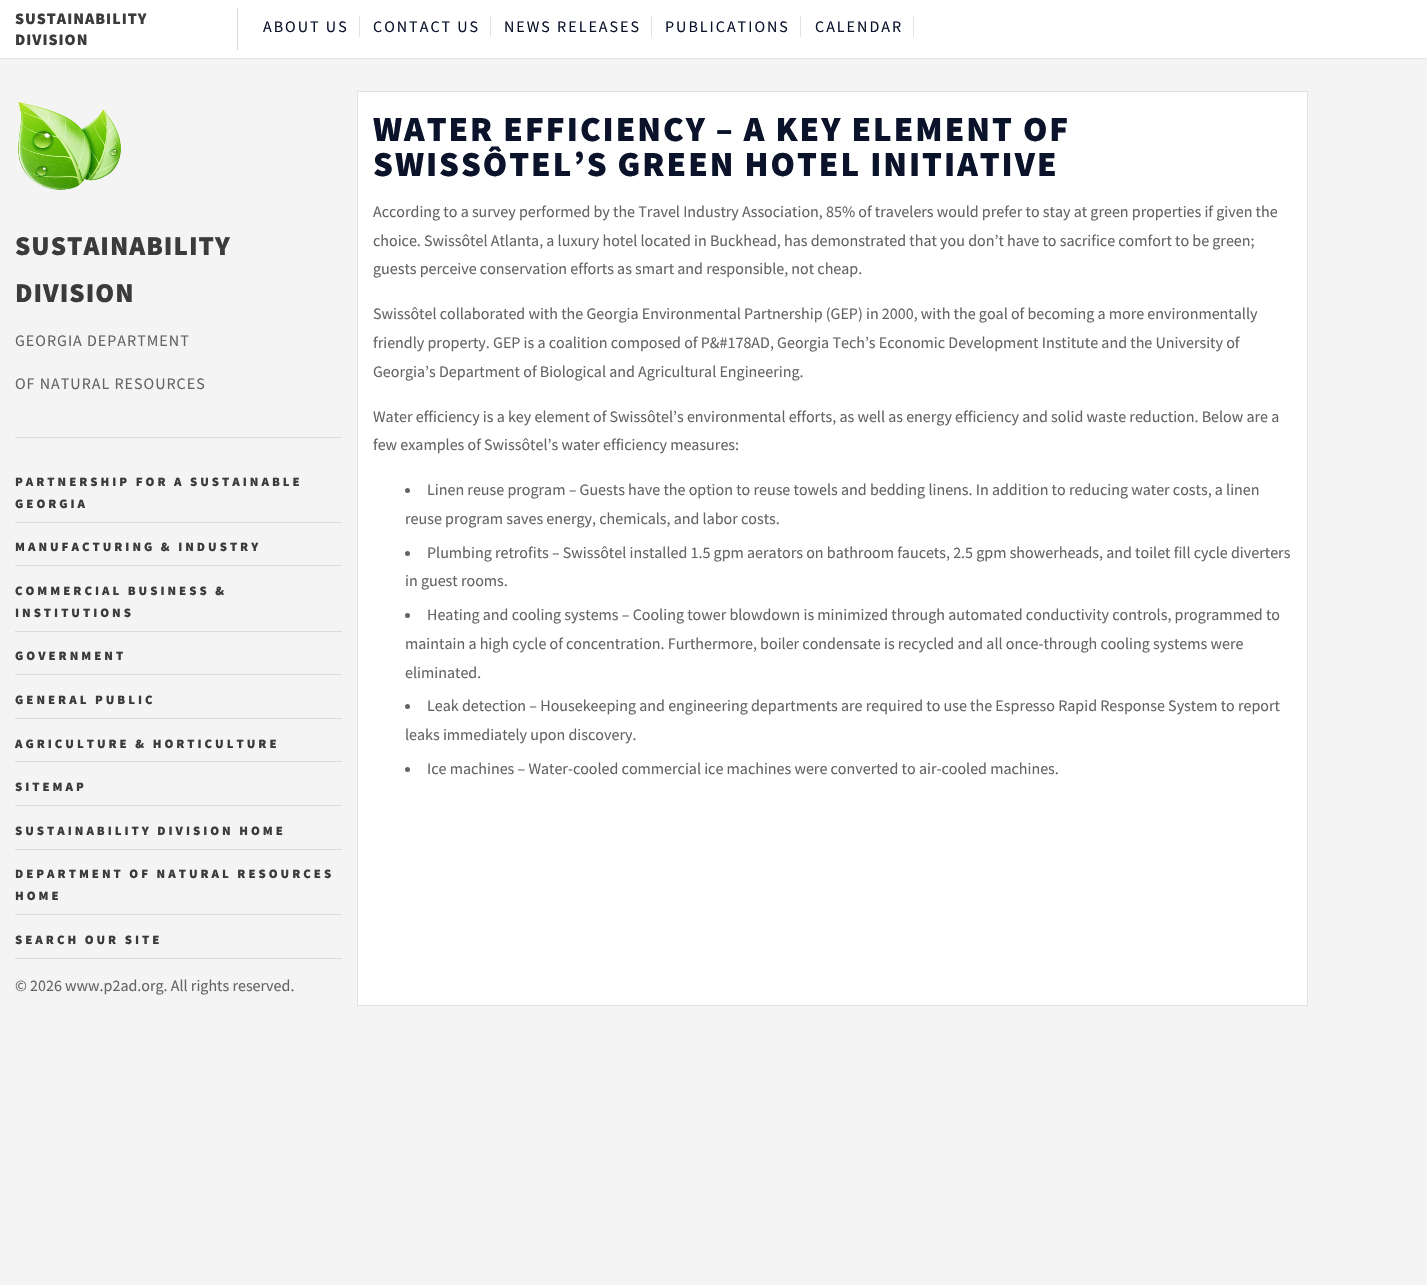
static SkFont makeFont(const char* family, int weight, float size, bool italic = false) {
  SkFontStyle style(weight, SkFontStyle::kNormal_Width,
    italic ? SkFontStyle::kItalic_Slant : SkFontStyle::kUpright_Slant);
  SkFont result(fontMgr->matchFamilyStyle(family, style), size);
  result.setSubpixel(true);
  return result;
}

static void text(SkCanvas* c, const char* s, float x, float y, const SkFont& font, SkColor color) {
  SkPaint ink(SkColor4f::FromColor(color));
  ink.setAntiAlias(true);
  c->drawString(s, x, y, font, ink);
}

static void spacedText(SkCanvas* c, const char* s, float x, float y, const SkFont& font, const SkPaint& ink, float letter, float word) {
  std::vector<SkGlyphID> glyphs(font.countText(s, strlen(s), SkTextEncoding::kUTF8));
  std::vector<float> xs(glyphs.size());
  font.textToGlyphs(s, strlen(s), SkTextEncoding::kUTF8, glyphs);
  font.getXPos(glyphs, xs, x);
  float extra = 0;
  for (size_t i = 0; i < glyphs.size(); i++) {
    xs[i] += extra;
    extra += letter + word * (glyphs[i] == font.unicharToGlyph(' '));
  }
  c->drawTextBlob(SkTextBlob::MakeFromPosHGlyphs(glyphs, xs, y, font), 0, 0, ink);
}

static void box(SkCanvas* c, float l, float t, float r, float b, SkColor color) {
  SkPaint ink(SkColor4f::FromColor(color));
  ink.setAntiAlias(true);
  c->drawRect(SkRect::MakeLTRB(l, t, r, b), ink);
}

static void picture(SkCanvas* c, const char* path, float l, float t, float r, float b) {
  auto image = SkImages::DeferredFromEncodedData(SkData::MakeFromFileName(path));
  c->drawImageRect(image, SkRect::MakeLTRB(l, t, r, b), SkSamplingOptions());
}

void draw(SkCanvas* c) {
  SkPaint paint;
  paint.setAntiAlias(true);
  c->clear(0xfff4f4f4);
  box(c, 0, 0, 1427, 58, 0xffffffff);
  box(c, 0, 58, 1427, 59, 0xffe2e2e2);
  box(c, 237, 8, 238, 50, 0xffdbdbdb);
  SkFont face1 = makeFont("Source Sans Pro", 900, 16);
  paint.setColor(0xff3c3b3b);
  spacedText(c, "SUSTAINABILITY", 15, 24, face1, paint, 1, 0);
  spacedText(c, "DIVISION", 15, 45, face1, paint, 1, 0);
  box(c, 359, 16, 360, 37, 0xffe2e2e2);
  SkFont face2 = makeFont("Source Sans Pro", 400, 16);
  paint.setColor(0xff0b132b);
  spacedText(c, "ABOUT US", 263, 32, face2, paint, 2, 0);
  box(c, 490, 16, 491, 37, 0xffe2e2e2);
  spacedText(c, "CONTACT US", 373, 32, face2, paint, 2, 0);
  box(c, 651, 16, 652, 37, 0xffe2e2e2);
  spacedText(c, "NEWS RELEASES", 504, 32, face2, paint, 2, 0);
  box(c, 800, 16, 801, 37, 0xffe2e2e2);
  spacedText(c, "PUBLICATIONS", 665, 32, face2, paint, 2, 0);
  box(c, 913, 16, 914, 37, 0xffe2e2e2);
  spacedText(c, "CALENDAR", 815, 32, face2, paint, 2, 0);
  box(c, 15, 437, 342, 438, 0xffdbdbdb);
  picture(c, "img_01.png", 18, 102, 121, 190);
  SkFont face3 = makeFont("Source Sans Pro", 900, 27.25f);
  paint.setColor(0xff3c3b3b);
  spacedText(c, "SUSTAINABILITY", 15, 255, face3, paint, 1, 0);
  spacedText(c, "DIVISION", 15, 302, face3, paint, 1, 0);
  paint.setColor(0xff646464);
  spacedText(c, "GEORGIA DEPARTMENT", 15, 346, face2, paint, 1, 0);
  spacedText(c, "OF NATURAL RESOURCES", 15, 389, face2, paint, 1, 0);
  box(c, 15, 522, 342, 523, 0xffdbdbdb);
  SkFont face4 = makeFont("Source Sans Pro", 900, 12.8f);
  paint.setColor(0xff3c3b3b);
  spacedText(c, "PARTNERSHIP FOR A SUSTAINABLE", 15, 486, face4, paint, 3, 0);
  spacedText(c, "GEORGIA", 15, 508, face4, paint, 3, 0);
  box(c, 15, 565, 342, 566, 0xffdbdbdb);
  spacedText(c, "MANUFACTURING & INDUSTRY", 15, 551, face4, paint, 3, 0);
  box(c, 15, 631, 342, 632, 0xffdbdbdb);
  spacedText(c, "COMMERCIAL BUSINESS &", 15, 595, face4, paint, 3, 0);
  spacedText(c, "INSTITUTIONS", 15, 617, face4, paint, 3, 0);
  box(c, 15, 674, 342, 675, 0xffdbdbdb);
  spacedText(c, "GOVERNMENT", 15, 660, face4, paint, 3, 0);
  box(c, 15, 718, 342, 719, 0xffdbdbdb);
  spacedText(c, "GENERAL PUBLIC", 15, 704, face4, paint, 3, 0);
  box(c, 15, 761, 342, 762, 0xffdbdbdb);
  spacedText(c, "AGRICULTURE & HORTICULTURE", 15, 748, face4, paint, 3, 0);
  box(c, 15, 805, 342, 806, 0xffdbdbdb);
  spacedText(c, "SITEMAP", 15, 791, face4, paint, 3, 0);
  box(c, 15, 849, 342, 850, 0xffdbdbdb);
  spacedText(c, "SUSTAINABILITY DIVISION HOME", 15, 835, face4, paint, 3, 0);
  box(c, 15, 914, 342, 915, 0xffdbdbdb);
  spacedText(c, "DEPARTMENT OF NATURAL RESOURCES", 15, 878, face4, paint, 3, 0);
  spacedText(c, "HOME", 15, 900, face4, paint, 3, 0);
  box(c, 15, 958, 342, 959, 0xffdbdbdb);
  spacedText(c, "SEARCH OUR SITE", 15, 944, face4, paint, 3, 0);
  text(c, "© 2026 www.p2ad.org. All rights reserved.", 15, 991, face2, 0xff646464);
  paint.setColor(0xffffffff);
  c->drawRect(SkRect::MakeLTRB(357.5f, 91.5f, 1307.5f, 1005.5f), paint);
  paint.setStyle(SkPaint::kStroke_Style);
  paint.setStrokeWidth(1);
  paint.setColor(0xffe2e2e2);
  c->drawRect(SkRect::MakeLTRB(357.5f, 91.5f, 1307.5f, 1005.5f), paint);
  SkFont face5 = makeFont("Source Sans Pro", 900, 35.25f);
  paint.setStyle(SkPaint::kFill_Style);
  paint.setColor(0xff0b132b);
  spacedText(c, "WATER EFFICIENCY – A KEY ELEMENT OF", 373, 141, face5, paint, 2, 0);
  spacedText(c, "SWISSÔTEL’S GREEN HOTEL INITIATIVE", 373, 176, face5, paint, 2, 0);
  text(c, "According to a survey performed by the Travel Industry Association, 85% of travelers would prefer to stay at green properties if given the", 373, 217, face2, 0xff646464);
  text(c, "choice. Swissôtel Atlanta, a luxury hotel located in Buckhead, has demonstrated that you don’t have to sacrifice comfort to be green;", 373, 246, face2, 0xff646464);
  text(c, "guests perceive conservation efforts as smart and responsible, not cheap.", 373, 274, face2, 0xff646464);
  text(c, "Swissôtel collaborated with the Georgia Environmental Partnership (GEP) in 2000, with the goal of becoming a more environmentally", 373, 319, face2, 0xff646464);
  text(c, "friendly property. GEP is a coalition composed of P&#178AD, Georgia Tech’s Economic Development Institute and the University of", 373, 348, face2, 0xff646464);
  text(c, "Georgia’s Department of Biological and Agricultural Engineering.", 373, 377, face2, 0xff646464);
  text(c, "Water efficiency is a key element of Swissôtel’s environmental efforts, as well as energy efficiency and solid waste reduction. Below are a", 373, 422, face2, 0xff646464);
  text(c, "few examples of Swissôtel’s water efficiency measures:", 373, 450, face2, 0xff646464);
  paint.setColor(0xff646464);
  c->drawCircle(407.5f, 490.5f, 2.5f, paint);
  text(c, "Linen reuse program – Guests have the option to reuse towels and bedding linens. In addition to reducing water costs, a linen", 427, 495, face2, 0xff646464);
  text(c, "reuse program saves energy, chemicals, and labor costs.", 405, 524, face2, 0xff646464);
  c->drawCircle(407.5f, 553.5f, 2.5f, paint);
  text(c, "Plumbing retrofits – Swissôtel installed 1.5 gpm aerators on bathroom faucets, 2.5 gpm showerheads, and toilet fill cycle diverters", 427, 558, face2, 0xff646464);
  text(c, "in guest rooms.", 405, 586, face2, 0xff646464);
  c->drawCircle(407.5f, 615.5f, 2.5f, paint);
  text(c, "Heating and cooling systems – Cooling tower blowdown is minimized through automated conductivity controls, programmed to", 427, 620, face2, 0xff646464);
  text(c, "maintain a high cycle of concentration. Furthermore, boiler condensate is recycled and all once-through cooling systems were", 405, 649, face2, 0xff646464);
  text(c, "eliminated.", 405, 678, face2, 0xff646464);
  c->drawCircle(407.5f, 706.5f, 2.5f, paint);
  text(c, "Leak detection – Housekeeping and engineering departments are required to use the Espresso Rapid Response System to report", 427, 711, face2, 0xff646464);
  text(c, "leaks immediately upon discovery.", 405, 740, face2, 0xff646464);
  c->drawCircle(407.5f, 769.5f, 2.5f, paint);
  text(c, "Ice machines – Water-cooled commercial ice machines were converted to air-cooled machines.", 427, 774, face2, 0xff646464);
}
